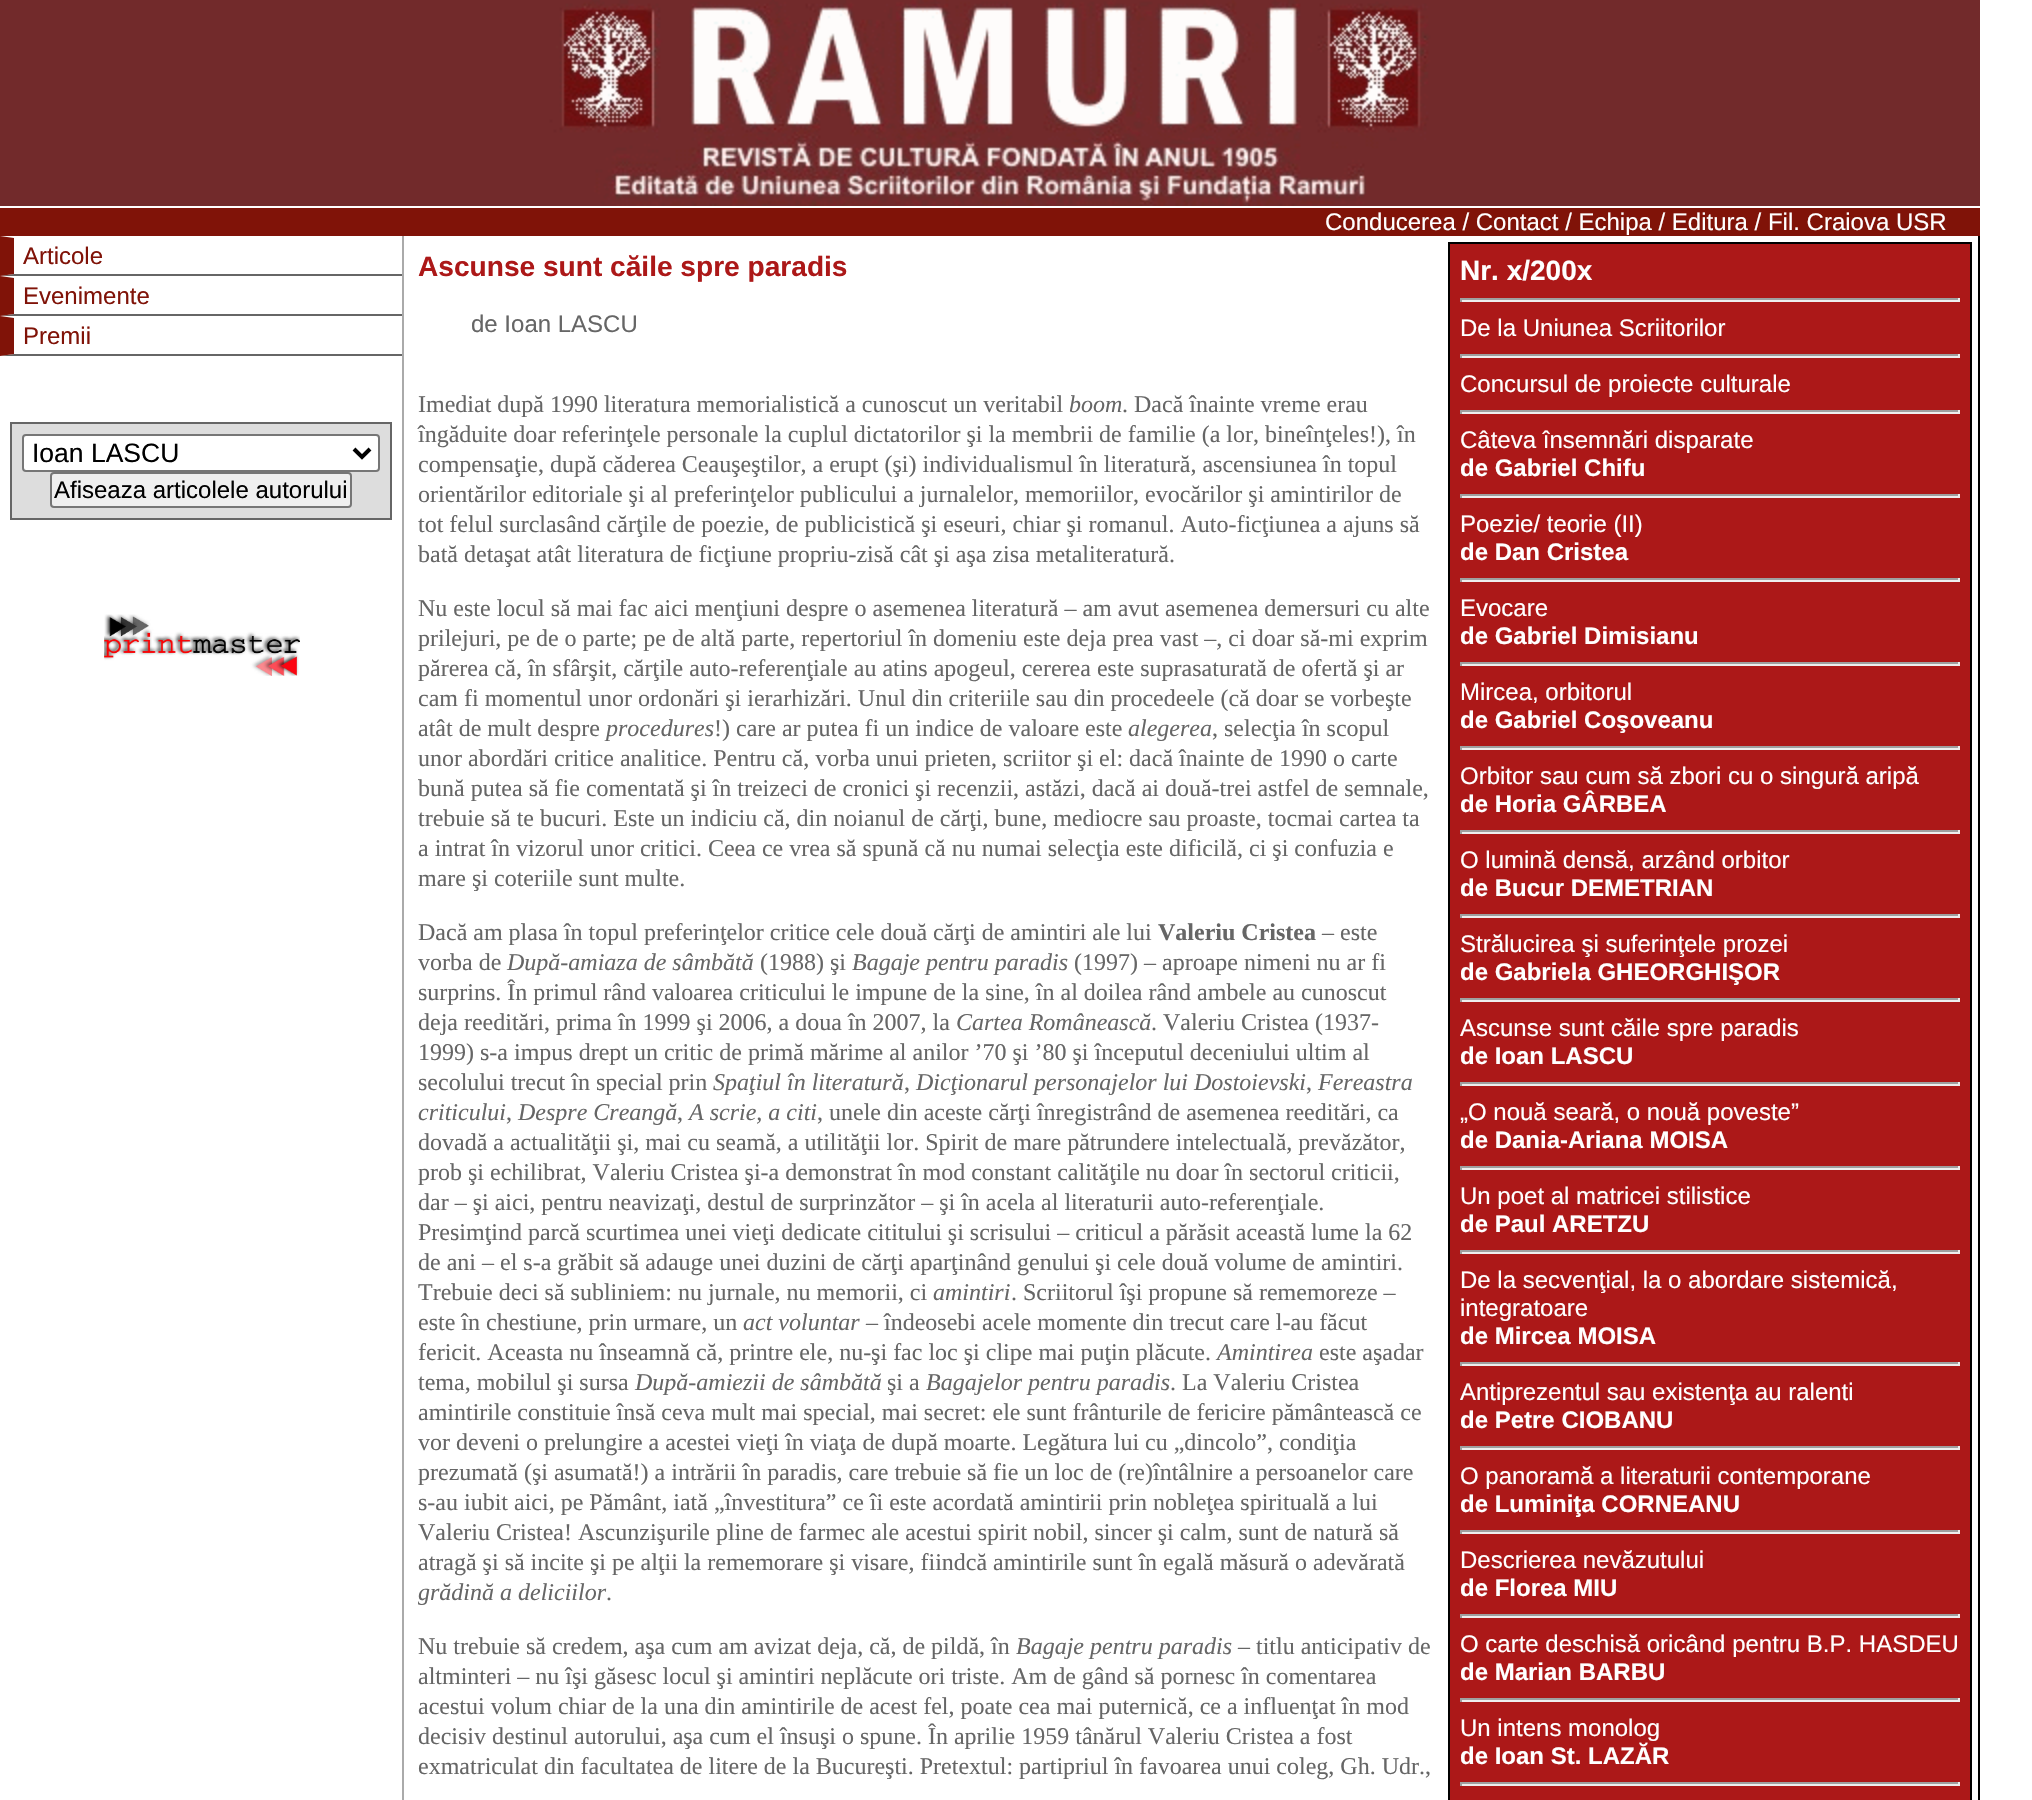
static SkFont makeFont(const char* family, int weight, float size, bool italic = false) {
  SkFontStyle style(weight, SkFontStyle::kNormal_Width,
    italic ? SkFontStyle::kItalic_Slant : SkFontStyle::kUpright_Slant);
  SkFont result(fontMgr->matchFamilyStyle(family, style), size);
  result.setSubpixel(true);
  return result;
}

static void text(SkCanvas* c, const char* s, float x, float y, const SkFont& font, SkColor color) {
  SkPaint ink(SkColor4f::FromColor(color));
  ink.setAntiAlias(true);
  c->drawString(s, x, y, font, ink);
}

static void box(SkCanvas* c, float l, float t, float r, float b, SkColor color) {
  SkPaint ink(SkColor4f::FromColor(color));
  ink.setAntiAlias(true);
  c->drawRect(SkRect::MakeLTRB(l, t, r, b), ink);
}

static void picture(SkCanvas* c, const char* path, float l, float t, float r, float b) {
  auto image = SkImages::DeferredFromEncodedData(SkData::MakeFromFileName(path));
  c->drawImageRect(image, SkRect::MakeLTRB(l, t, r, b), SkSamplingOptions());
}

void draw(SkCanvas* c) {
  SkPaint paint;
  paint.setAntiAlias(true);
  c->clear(0xffffffff);
  picture(c, "img_01.png", 0, 0, 1980, 206);
  box(c, 0, 208, 1980, 236, 0xff801308);
  SkFont face1 = makeFont("Liberation Sans", 400, 24);
  text(c, "Conducerea / Contact / Echipa / Editura / Fil. Craiova USR", 1325, 230, face1, 0xffffffff);
  box(c, 402, 236, 404, 1800, 0xffaaaaaa);
  paint.setColor(0xff666666);
  c->drawPath(SkPathBuilder().moveTo(402, 276).lineTo(0, 276).lineTo(14, 274).lineTo(402, 274).close().detach(), paint);
  paint.setColor(0xff801308);
  c->drawPath(SkPathBuilder().moveTo(0, 276).lineTo(0, 236).lineTo(14, 238).lineTo(14, 274).close().detach(), paint);
  text(c, "Articole", 23, 264, face1, 0xff801308);
  paint.setColor(0xff666666);
  c->drawPath(SkPathBuilder().moveTo(402, 316).lineTo(0, 316).lineTo(14, 314).lineTo(402, 314).close().detach(), paint);
  paint.setColor(0xff801308);
  c->drawPath(SkPathBuilder().moveTo(0, 316).lineTo(0, 276).lineTo(14, 278).lineTo(14, 314).close().detach(), paint);
  text(c, "Evenimente", 23, 304, face1, 0xff801308);
  paint.setColor(0xff666666);
  c->drawPath(SkPathBuilder().moveTo(402, 356).lineTo(0, 356).lineTo(14, 354).lineTo(402, 354).close().detach(), paint);
  paint.setColor(0xff801308);
  c->drawPath(SkPathBuilder().moveTo(0, 356).lineTo(0, 316).lineTo(14, 318).lineTo(14, 354).close().detach(), paint);
  text(c, "Premii", 23, 344, face1, 0xff801308);
  paint.setColor(0xffdddddd);
  c->drawRect(SkRect::MakeLTRB(11, 423, 391, 519), paint);
  paint.setStyle(SkPaint::kStroke_Style);
  paint.setStrokeWidth(2);
  paint.setColor(0xff666666);
  c->drawRect(SkRect::MakeLTRB(11, 423, 391, 519), paint);
  paint.setStyle(SkPaint::kFill_Style);
  paint.setColor(0xffffffff);
  c->drawRoundRect(SkRect::MakeLTRB(23, 435, 379, 471), 3, 3, paint);
  paint.setStyle(SkPaint::kStroke_Style);
  paint.setColor(0xff767676);
  c->drawRoundRect(SkRect::MakeLTRB(23, 435, 379, 471), 3, 3, paint);
  paint.setStrokeWidth(4);
  paint.setColor(0xff000000);
  c->drawPath(SkPathBuilder().moveTo(354, 449).lineTo(362, 457).lineTo(370, 449).detach(), paint);
  SkFont face2 = makeFont("Liberation Sans", 400, 26.5f);
  text(c, "Ioan LASCU", 32, 462, face2, 0xff000000);
  paint.setStyle(SkPaint::kFill_Style);
  paint.setColor(0xffefefef);
  c->drawRoundRect(SkRect::MakeLTRB(51, 473, 351, 507), 3, 3, paint);
  paint.setStyle(SkPaint::kStroke_Style);
  paint.setStrokeWidth(2);
  paint.setColor(0xff767676);
  c->drawRoundRect(SkRect::MakeLTRB(51, 473, 351, 507), 3, 3, paint);
  text(c, "Afiseaza articolele autorului", 54, 498, face1, 0xff000000);
  picture(c, "img_02.png", 104, 614, 300, 676);
  box(c, 1978, 236, 1980, 1800, 0xff000000);
  SkFont face3 = makeFont("Liberation Sans", 700, 28.1f);
  text(c, "Ascunse sunt căile spre paradis", 418, 276, face3, 0xffac1818);
  text(c, "de Ioan LASCU", 471, 332, face1, 0xff666666);
  SkFont face4 = makeFont("Liberation Serif", 400, 24);
  text(c, "Imediat după 1990 literatura memorialistică a cunoscut un veritabil", 418, 412, face4, 0xff666666);
  SkFont face5 = makeFont("Liberation Serif", 400, 24, true);
  text(c, "boom", 1069, 412, face5, 0xff666666);
  text(c, ". Dacă înainte vreme erau", 1122, 412, face4, 0xff666666);
  text(c, "îngăduite doar referinţele personale la cuplul dictatorilor şi la membrii de familie (a lor, bineînţeles!), în", 418, 442, face4, 0xff666666);
  text(c, "compensaţie, după căderea Ceauşeştilor, a erupt (şi) individualismul în literatură, ascensiunea în topul", 418, 472, face4, 0xff666666);
  text(c, "orientărilor editoriale şi al preferinţelor publicului a jurnalelor, memoriilor, evocărilor şi amintirilor de", 418, 502, face4, 0xff666666);
  text(c, "tot felul surclasând cărţile de poezie, de publicistică şi eseuri, chiar şi romanul. Auto-ficţiunea a ajuns să", 418, 532, face4, 0xff666666);
  text(c, "bată detaşat atât literatura de ficţiune propriu-zisă cât şi aşa zisa metaliteratură.", 418, 562, face4, 0xff666666);
  text(c, "Nu este locul să mai fac aici menţiuni despre o asemenea literatură – am avut asemenea demersuri cu alte", 418, 616, face4, 0xff666666);
  text(c, "prilejuri, pe de o parte; pe de altă parte, repertoriul în domeniu este deja prea vast –, ci doar să-mi exprim", 418, 646, face4, 0xff666666);
  text(c, "părerea că, în sfârşit, cărţile auto-referenţiale au atins apogeul, cererea este suprasaturată de ofertă şi ar", 418, 676, face4, 0xff666666);
  text(c, "cam fi momentul unor ordonări şi ierarhizări. Unul din criteriile sau din procedeele (că doar se vorbeşte", 418, 706, face4, 0xff666666);
  text(c, "atât de mult despre", 418, 736, face4, 0xff666666);
  text(c, "procedures", 606, 736, face5, 0xff666666);
  text(c, "!) care ar putea fi un indice de valoare este", 714, 736, face4, 0xff666666);
  text(c, "alegerea", 1128, 736, face5, 0xff666666);
  text(c, ", selecţia în scopul", 1212, 736, face4, 0xff666666);
  text(c, "unor abordări critice analitice. Pentru că, vorba unui prieten, scriitor şi el: dacă înainte de 1990 o carte", 418, 766, face4, 0xff666666);
  text(c, "bună putea să fie comentată şi în treizeci de cronici şi recenzii, astăzi, dacă ai două-trei astfel de semnale,", 418, 796, face4, 0xff666666);
  text(c, "trebuie să te bucuri. Este un indiciu că, din noianul de cărţi, bune, mediocre sau proaste, tocmai cartea ta", 418, 826, face4, 0xff666666);
  text(c, "a intrat în vizorul unor critici. Ceea ce vrea să spună că nu numai selecţia este dificilă, ci şi confuzia e", 418, 856, face4, 0xff666666);
  text(c, "mare şi coteriile sunt multe.", 418, 886, face4, 0xff666666);
  text(c, "Dacă am plasa în topul preferinţelor critice cele două cărţi de amintiri ale lui", 418, 940, face4, 0xff666666);
  SkFont face6 = makeFont("Liberation Serif", 700, 24);
  text(c, "Valeriu Cristea", 1158, 940, face6, 0xff666666);
  text(c, "– este", 1322, 940, face4, 0xff666666);
  text(c, "vorba de", 418, 970, face4, 0xff666666);
  text(c, "După-amiaza de sâmbătă", 507, 970, face5, 0xff666666);
  text(c, "(1988) şi", 760, 970, face4, 0xff666666);
  text(c, "Bagaje pentru paradis", 852, 970, face5, 0xff666666);
  text(c, "(1997) – aproape nimeni nu ar fi", 1074, 970, face4, 0xff666666);
  text(c, "surprins. În primul rând valoarea criticului le impune de la sine, în al doilea rând ambele au cunoscut", 418, 1000, face4, 0xff666666);
  text(c, "deja reeditări, prima în 1999 şi 2006, a doua în 2007, la", 418, 1030, face4, 0xff666666);
  text(c, "Cartea Românească", 956, 1030, face5, 0xff666666);
  text(c, ". Valeriu Cristea (1937-", 1151, 1030, face4, 0xff666666);
  text(c, "1999) s-a impus drept un critic de primă mărime al anilor ’70 şi ’80 şi începutul deceniului ultim al", 418, 1060, face4, 0xff666666);
  text(c, "secolului trecut în special prin", 418, 1090, face4, 0xff666666);
  text(c, "Spaţiul în literatură", 713, 1090, face5, 0xff666666);
  text(c, ",", 904, 1090, face4, 0xff666666);
  text(c, "Dicţionarul personajelor lui Dostoievski", 916, 1090, face5, 0xff666666);
  text(c, ",", 1306, 1090, face4, 0xff666666);
  text(c, "Fereastra", 1318, 1090, face5, 0xff666666);
  text(c, "criticului", 418, 1120, face5, 0xff666666);
  text(c, ",", 506, 1120, face4, 0xff666666);
  text(c, "Despre Creangă", 518, 1120, face5, 0xff666666);
  text(c, ",", 677, 1120, face4, 0xff666666);
  text(c, "A scrie, a citi", 689, 1120, face5, 0xff666666);
  text(c, ", unele din aceste cărţi înregistrând de asemenea reeditări, ca", 817, 1120, face4, 0xff666666);
  text(c, "dovadă a actualităţii şi, mai cu seamă, a utilităţii lor. Spirit de mare pătrundere intelectuală, prevăzător,", 418, 1150, face4, 0xff666666);
  text(c, "prob şi echilibrat, Valeriu Cristea şi-a demonstrat în mod constant calităţile nu doar în sectorul criticii,", 418, 1180, face4, 0xff666666);
  text(c, "dar – şi aici, pentru neavizaţi, destul de surprinzător – şi în acela al literaturii auto-referenţiale.", 418, 1210, face4, 0xff666666);
  text(c, "Presimţind parcă scurtimea unei vieţi dedicate cititului şi scrisului – criticul a părăsit această lume la 62", 418, 1240, face4, 0xff666666);
  text(c, "de ani – el s-a grăbit să adauge unei duzini de cărţi aparţinând genului şi cele două volume de amintiri.", 418, 1270, face4, 0xff666666);
  text(c, "Trebuie deci să subliniem: nu jurnale, nu memorii, ci", 418, 1300, face4, 0xff666666);
  text(c, "amintiri", 933, 1300, face5, 0xff666666);
  text(c, ". Scriitorul îşi propune să rememoreze –", 1011, 1300, face4, 0xff666666);
  text(c, "este în chestiune, prin urmare, un", 418, 1330, face4, 0xff666666);
  text(c, "act voluntar", 743, 1330, face5, 0xff666666);
  text(c, "– îndeosebi acele momente din trecut care l-au făcut", 866, 1330, face4, 0xff666666);
  text(c, "fericit. Aceasta nu înseamnă că, printre ele, nu-şi fac loc şi clipe mai puţin plăcute.", 418, 1360, face4, 0xff666666);
  text(c, "Amintirea", 1217, 1360, face5, 0xff666666);
  text(c, "este aşadar", 1319, 1360, face4, 0xff666666);
  text(c, "tema, mobilul şi sursa", 418, 1390, face4, 0xff666666);
  text(c, "După-amiezii de sâmbătă", 635, 1390, face5, 0xff666666);
  text(c, "şi a", 887, 1390, face4, 0xff666666);
  text(c, "Bagajelor pentru paradis", 926, 1390, face5, 0xff666666);
  text(c, ". La Valeriu Cristea", 1170, 1390, face4, 0xff666666);
  text(c, "amintirile constituie însă ceva mult mai special, mai secret: ele sunt frânturile de fericire pământească ce", 418, 1420, face4, 0xff666666);
  text(c, "vor deveni o prelungire a acestei vieţi în viaţa de după moarte. Legătura lui cu „dincolo”, condiţia", 418, 1450, face4, 0xff666666);
  text(c, "prezumată (şi asumată!) a intrării în paradis, care trebuie să fie un loc de (re)întâlnire a persoanelor care", 418, 1480, face4, 0xff666666);
  text(c, "s-au iubit aici, pe Pământ, iată „învestitura” ce îi este acordată amintirii prin nobleţea spirituală a lui", 418, 1510, face4, 0xff666666);
  text(c, "Valeriu Cristea! Ascunzişurile pline de farmec ale acestui spirit nobil, sincer şi calm, sunt de natură să", 418, 1540, face4, 0xff666666);
  text(c, "atragă şi să incite şi pe alţii la rememorare şi visare, fiindcă amintirile sunt în egală măsură o adevărată", 418, 1570, face4, 0xff666666);
  text(c, "grădină a deliciilor", 418, 1600, face5, 0xff666666);
  text(c, ".", 606, 1600, face4, 0xff666666);
  text(c, "Nu trebuie să credem, aşa cum am avizat deja, că, de pildă, în", 418, 1654, face4, 0xff666666);
  text(c, "Bagaje pentru paradis", 1016, 1654, face5, 0xff666666);
  text(c, "– titlu anticipativ de", 1238, 1654, face4, 0xff666666);
  text(c, "altminteri – nu îşi găsesc locul şi amintiri neplăcute ori triste. Am de gând să pornesc în comentarea", 418, 1684, face4, 0xff666666);
  text(c, "acestui volum chiar de la una din amintirile de acest fel, poate cea mai puternică, ce a influenţat în mod", 418, 1714, face4, 0xff666666);
  text(c, "decisiv destinul autorului, aşa cum el însuşi o spune. În aprilie 1959 tânărul Valeriu Cristea a fost", 418, 1744, face4, 0xff666666);
  text(c, "exmatriculat din facultatea de litere de la Bucureşti. Pretextul: partipriul în favoarea unui coleg, Gh. Udr.,", 418, 1774, face4, 0xff666666);
  paint.setStyle(SkPaint::kFill_Style);
  paint.setColor(0xffac1818);
  c->drawRect(SkRect::MakeLTRB(1449, 243, 1971, 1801), paint);
  paint.setStyle(SkPaint::kStroke_Style);
  paint.setColor(0xff000000);
  c->drawRect(SkRect::MakeLTRB(1449, 243, 1971, 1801), paint);
  SkFont face7 = makeFont("Liberation Sans", 700, 28);
  text(c, "Nr. x/200x", 1460, 280, face7, 0xffffffff);
  box(c, 1460, 298, 1960, 300, 0xff9f9f9f);
  box(c, 1958, 298, 1960, 302, 0xffeeeeee);
  box(c, 1460, 300, 1960, 302, 0xffeeeeee);
  box(c, 1460, 298, 1462, 302, 0xff9f9f9f);
  text(c, "De la Uniunea Scriitorilor", 1460, 336, face1, 0xffffffff);
  box(c, 1460, 354, 1960, 356, 0xff9f9f9f);
  box(c, 1958, 354, 1960, 358, 0xffeeeeee);
  box(c, 1460, 356, 1960, 358, 0xffeeeeee);
  box(c, 1460, 354, 1462, 358, 0xff9f9f9f);
  text(c, "Concursul de proiecte culturale", 1460, 392, face1, 0xffffffff);
  box(c, 1460, 410, 1960, 412, 0xff9f9f9f);
  box(c, 1958, 410, 1960, 414, 0xffeeeeee);
  box(c, 1460, 412, 1960, 414, 0xffeeeeee);
  box(c, 1460, 410, 1462, 414, 0xff9f9f9f);
  text(c, "Câteva însemnări disparate", 1460, 448, face1, 0xffffffff);
  SkFont face8 = makeFont("Liberation Sans", 700, 24);
  text(c, "de Gabriel Chifu", 1460, 476, face8, 0xffffffff);
  box(c, 1460, 494, 1960, 496, 0xff9f9f9f);
  box(c, 1958, 494, 1960, 498, 0xffeeeeee);
  box(c, 1460, 496, 1960, 498, 0xffeeeeee);
  box(c, 1460, 494, 1462, 498, 0xff9f9f9f);
  text(c, "Poezie/ teorie (II)", 1460, 532, face1, 0xffffffff);
  text(c, "de Dan Cristea", 1460, 560, face8, 0xffffffff);
  box(c, 1460, 578, 1960, 580, 0xff9f9f9f);
  box(c, 1958, 578, 1960, 582, 0xffeeeeee);
  box(c, 1460, 580, 1960, 582, 0xffeeeeee);
  box(c, 1460, 578, 1462, 582, 0xff9f9f9f);
  text(c, "Evocare", 1460, 616, face1, 0xffffffff);
  text(c, "de Gabriel Dimisianu", 1460, 644, face8, 0xffffffff);
  box(c, 1460, 662, 1960, 664, 0xff9f9f9f);
  box(c, 1958, 662, 1960, 666, 0xffeeeeee);
  box(c, 1460, 664, 1960, 666, 0xffeeeeee);
  box(c, 1460, 662, 1462, 666, 0xff9f9f9f);
  text(c, "Mircea, orbitorul", 1460, 700, face1, 0xffffffff);
  text(c, "de Gabriel Coşoveanu", 1460, 728, face8, 0xffffffff);
  box(c, 1460, 746, 1960, 748, 0xff9f9f9f);
  box(c, 1958, 746, 1960, 750, 0xffeeeeee);
  box(c, 1460, 748, 1960, 750, 0xffeeeeee);
  box(c, 1460, 746, 1462, 750, 0xff9f9f9f);
  text(c, "Orbitor sau cum să zbori cu o singură aripă", 1460, 784, face1, 0xffffffff);
  text(c, "de Horia GÂRBEA", 1460, 812, face8, 0xffffffff);
  box(c, 1460, 830, 1960, 832, 0xff9f9f9f);
  box(c, 1958, 830, 1960, 834, 0xffeeeeee);
  box(c, 1460, 832, 1960, 834, 0xffeeeeee);
  box(c, 1460, 830, 1462, 834, 0xff9f9f9f);
  text(c, "O lumină densă, arzând orbitor", 1460, 868, face1, 0xffffffff);
  text(c, "de Bucur DEMETRIAN", 1460, 896, face8, 0xffffffff);
  box(c, 1460, 914, 1960, 916, 0xff9f9f9f);
  box(c, 1958, 914, 1960, 918, 0xffeeeeee);
  box(c, 1460, 916, 1960, 918, 0xffeeeeee);
  box(c, 1460, 914, 1462, 918, 0xff9f9f9f);
  text(c, "Strălucirea şi suferinţele prozei", 1460, 952, face1, 0xffffffff);
  text(c, "de Gabriela GHEORGHIŞOR", 1460, 980, face8, 0xffffffff);
  box(c, 1460, 998, 1960, 1000, 0xff9f9f9f);
  box(c, 1958, 998, 1960, 1002, 0xffeeeeee);
  box(c, 1460, 1000, 1960, 1002, 0xffeeeeee);
  box(c, 1460, 998, 1462, 1002, 0xff9f9f9f);
  text(c, "Ascunse sunt căile spre paradis", 1460, 1036, face1, 0xffffffff);
  text(c, "de Ioan LASCU", 1460, 1064, face8, 0xffffffff);
  box(c, 1460, 1082, 1960, 1084, 0xff9f9f9f);
  box(c, 1958, 1082, 1960, 1086, 0xffeeeeee);
  box(c, 1460, 1084, 1960, 1086, 0xffeeeeee);
  box(c, 1460, 1082, 1462, 1086, 0xff9f9f9f);
  text(c, "„O nouă seară, o nouă poveste”", 1460, 1120, face1, 0xffffffff);
  text(c, "de Dania-Ariana MOISA", 1460, 1148, face8, 0xffffffff);
  box(c, 1460, 1166, 1960, 1168, 0xff9f9f9f);
  box(c, 1958, 1166, 1960, 1170, 0xffeeeeee);
  box(c, 1460, 1168, 1960, 1170, 0xffeeeeee);
  box(c, 1460, 1166, 1462, 1170, 0xff9f9f9f);
  text(c, "Un poet al matricei stilistice", 1460, 1204, face1, 0xffffffff);
  text(c, "de Paul ARETZU", 1460, 1232, face8, 0xffffffff);
  box(c, 1460, 1250, 1960, 1252, 0xff9f9f9f);
  box(c, 1958, 1250, 1960, 1254, 0xffeeeeee);
  box(c, 1460, 1252, 1960, 1254, 0xffeeeeee);
  box(c, 1460, 1250, 1462, 1254, 0xff9f9f9f);
  text(c, "De la secvenţial, la o abordare sistemică,", 1460, 1288, face1, 0xffffffff);
  text(c, "integratoare", 1460, 1316, face1, 0xffffffff);
  text(c, "de Mircea MOISA", 1460, 1344, face8, 0xffffffff);
  box(c, 1460, 1362, 1960, 1364, 0xff9f9f9f);
  box(c, 1958, 1362, 1960, 1366, 0xffeeeeee);
  box(c, 1460, 1364, 1960, 1366, 0xffeeeeee);
  box(c, 1460, 1362, 1462, 1366, 0xff9f9f9f);
  text(c, "Antiprezentul sau existenţa au ralenti", 1460, 1400, face1, 0xffffffff);
  text(c, "de Petre CIOBANU", 1460, 1428, face8, 0xffffffff);
  box(c, 1460, 1446, 1960, 1448, 0xff9f9f9f);
  box(c, 1958, 1446, 1960, 1450, 0xffeeeeee);
  box(c, 1460, 1448, 1960, 1450, 0xffeeeeee);
  box(c, 1460, 1446, 1462, 1450, 0xff9f9f9f);
  text(c, "O panoramă a literaturii contemporane", 1460, 1484, face1, 0xffffffff);
  text(c, "de Luminiţa CORNEANU", 1460, 1512, face8, 0xffffffff);
  box(c, 1460, 1530, 1960, 1532, 0xff9f9f9f);
  box(c, 1958, 1530, 1960, 1534, 0xffeeeeee);
  box(c, 1460, 1532, 1960, 1534, 0xffeeeeee);
  box(c, 1460, 1530, 1462, 1534, 0xff9f9f9f);
  text(c, "Descrierea nevăzutului", 1460, 1568, face1, 0xffffffff);
  text(c, "de Florea MIU", 1460, 1596, face8, 0xffffffff);
  box(c, 1460, 1614, 1960, 1616, 0xff9f9f9f);
  box(c, 1958, 1614, 1960, 1618, 0xffeeeeee);
  box(c, 1460, 1616, 1960, 1618, 0xffeeeeee);
  box(c, 1460, 1614, 1462, 1618, 0xff9f9f9f);
  text(c, "O carte deschisă oricând pentru B.P. HASDEU", 1460, 1652, face1, 0xffffffff);
  text(c, "de Marian BARBU", 1460, 1680, face8, 0xffffffff);
  box(c, 1460, 1698, 1960, 1700, 0xff9f9f9f);
  box(c, 1958, 1698, 1960, 1702, 0xffeeeeee);
  box(c, 1460, 1700, 1960, 1702, 0xffeeeeee);
  box(c, 1460, 1698, 1462, 1702, 0xff9f9f9f);
  text(c, "Un intens monolog", 1460, 1736, face1, 0xffffffff);
  text(c, "de Ioan St. LAZĂR", 1460, 1764, face8, 0xffffffff);
  box(c, 1460, 1782, 1960, 1784, 0xff9f9f9f);
  box(c, 1958, 1782, 1960, 1786, 0xffeeeeee);
  box(c, 1460, 1784, 1960, 1786, 0xffeeeeee);
  box(c, 1460, 1782, 1462, 1786, 0xff9f9f9f);
}
